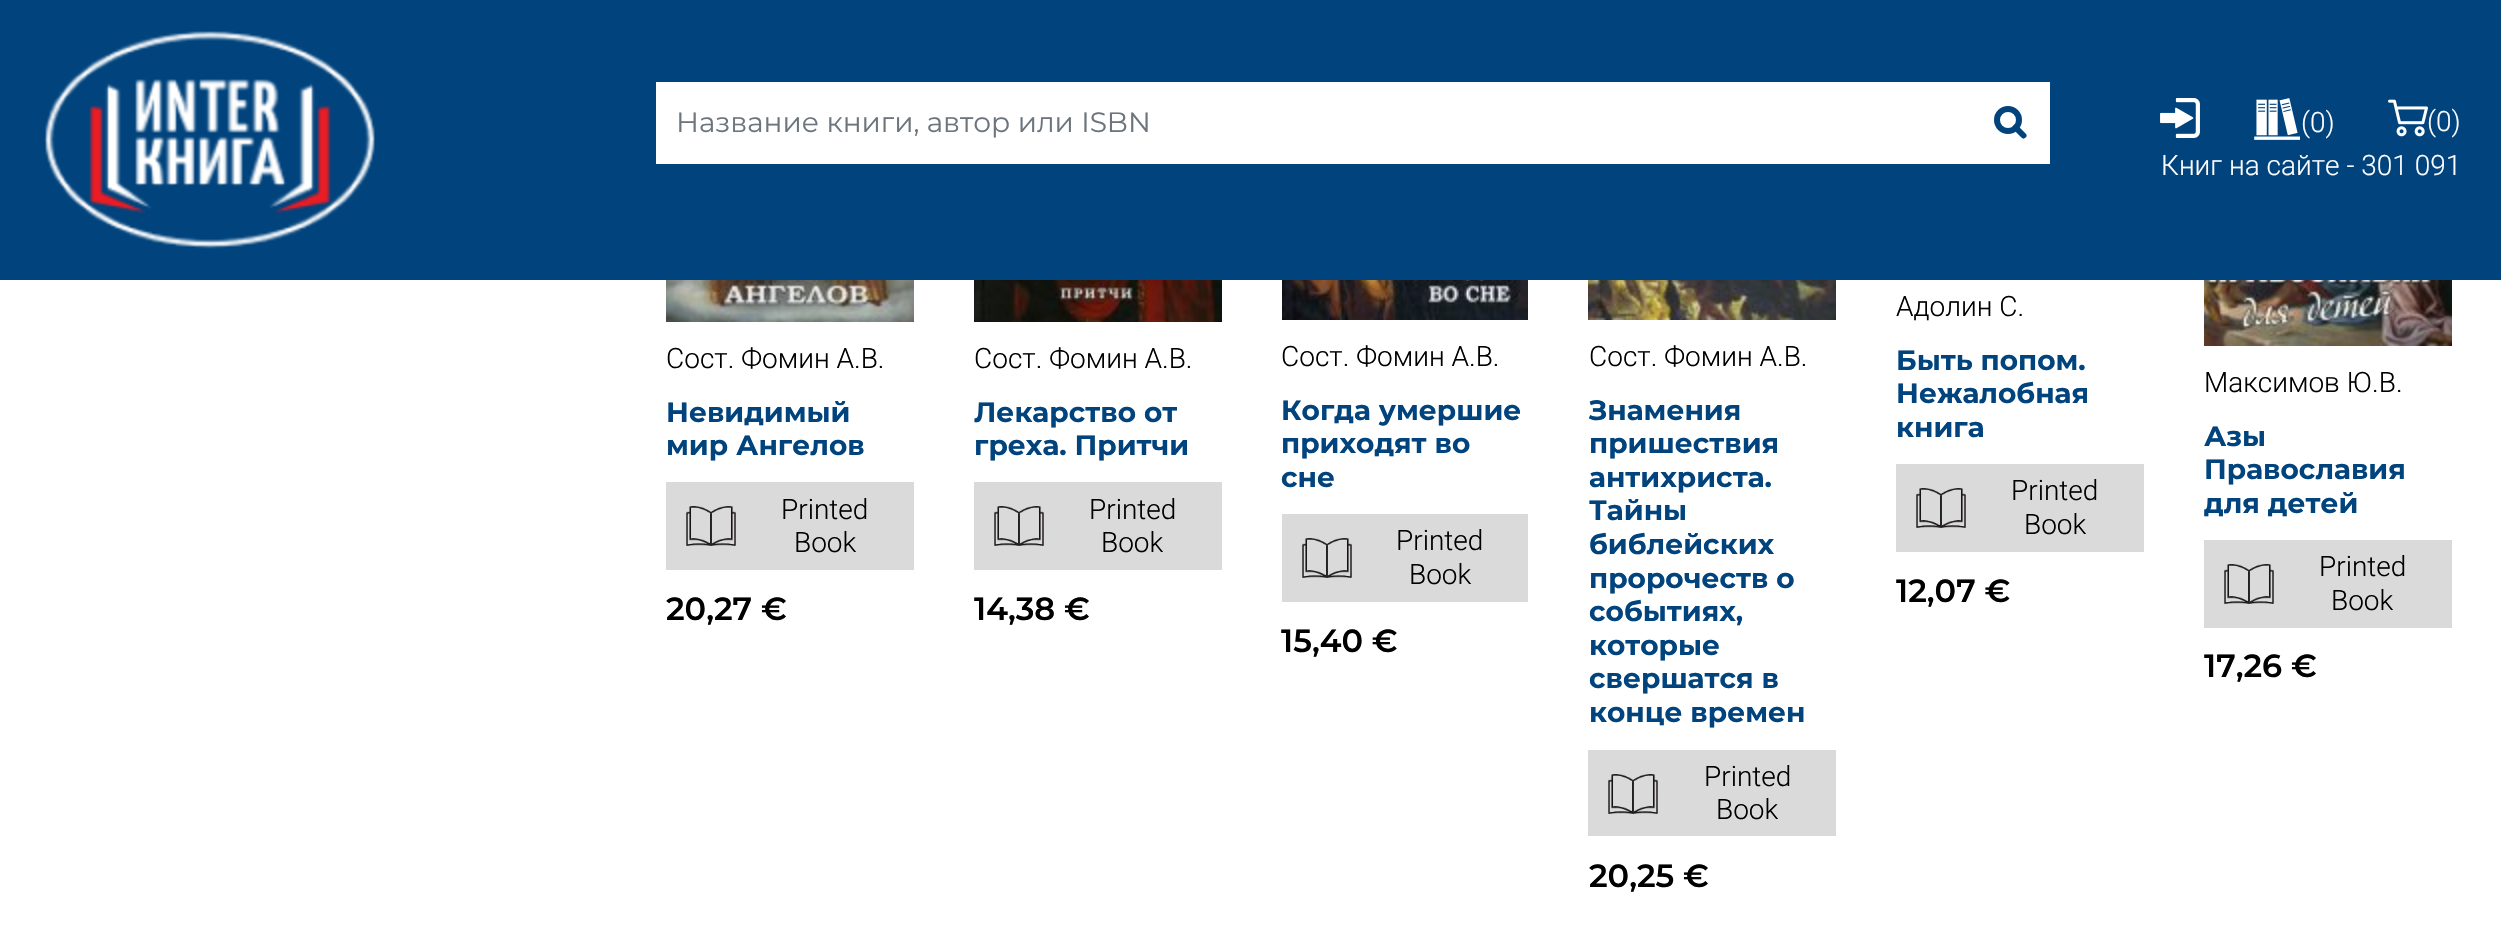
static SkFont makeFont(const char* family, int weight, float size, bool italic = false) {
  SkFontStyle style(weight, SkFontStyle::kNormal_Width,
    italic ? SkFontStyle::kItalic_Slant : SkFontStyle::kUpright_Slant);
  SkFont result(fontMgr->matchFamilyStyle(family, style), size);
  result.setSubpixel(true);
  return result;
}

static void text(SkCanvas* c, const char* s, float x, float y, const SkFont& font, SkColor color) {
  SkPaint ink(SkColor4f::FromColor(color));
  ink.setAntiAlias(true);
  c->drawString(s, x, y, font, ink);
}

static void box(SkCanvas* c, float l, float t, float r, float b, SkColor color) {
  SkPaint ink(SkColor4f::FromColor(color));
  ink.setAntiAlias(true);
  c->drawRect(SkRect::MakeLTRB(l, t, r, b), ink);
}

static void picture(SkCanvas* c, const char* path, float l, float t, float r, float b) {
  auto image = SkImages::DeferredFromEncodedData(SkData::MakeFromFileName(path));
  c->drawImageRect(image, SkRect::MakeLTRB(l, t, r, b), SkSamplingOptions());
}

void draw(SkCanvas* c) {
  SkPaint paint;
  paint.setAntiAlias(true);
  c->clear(0xffffffff);
  box(c, 0, 0, 2501, 280, 0xff00437d);
  picture(c, "img_01.png", 44, 31, 375, 249);
  box(c, 656, 82, 2050, 164, 0xffffffff);
  SkFont face1 = makeFont("Montserrat", 400, 28);
  text(c, "Название книги, автор или ISBN", 676, 132, face1, 0xff6c757d);
  paint.setStyle(SkPaint::kStroke_Style);
  paint.setStrokeWidth(6);
  paint.setColor(0xff00437d);
  c->drawCircle(2008, 120, 11, paint);
  paint.setStrokeCap(SkPaint::kRound_Cap);
  paint.setStrokeJoin(SkPaint::kRound_Join);
  c->drawPath(SkPathBuilder().moveTo(2023.5f, 135.5f).lineTo(2015.5f, 127.5f).detach(), paint);
  picture(c, "img_02.png", 2160, 98, 2200, 138);
  picture(c, "img_03.png", 2254, 98, 2300, 140);
  SkFont face2 = makeFont("Roboto", 300, 28);
  text(c, "(0)", 2301, 132, face2, 0xffffffff);
  picture(c, "img_04.png", 2388, 99, 2428, 137);
  text(c, "(0)", 2427, 131, face2, 0xffffffff);
  text(c, "Книг на сайте - 301 091", 2161, 175, face2, 0xffffffff);
  picture(c, "img_05.png", 666, 280, 914, 322);
  text(c, "Сост. Фомин А.В.", 666, 368, face2, 0xff000000);
  SkFont face3 = makeFont("Montserrat", 700, 28);
  text(c, "Невидимый", 666, 422, face3, 0xff00437d);
  text(c, "мир Ангелов", 666, 455, face3, 0xff00437d);
  box(c, 666, 482, 914, 570, 0xffdadada);
  picture(c, "img_06.png", 686, 506, 736, 546);
  text(c, "Printed", 781, 519, face2, 0xff000000);
  text(c, "Book", 794, 552, face2, 0xff000000);
  SkFont face4 = makeFont("Montserrat", 600, 32);
  text(c, "20,27 €", 666, 620, face4, 0xff000000);
  picture(c, "img_07.png", 974, 280, 1222, 322);
  text(c, "Сост. Фомин А.В.", 974, 368, face2, 0xff000000);
  text(c, "Лекарство от", 974, 422, face3, 0xff00437d);
  text(c, "греха. Притчи", 974, 455, face3, 0xff00437d);
  box(c, 974, 482, 1222, 570, 0xffdadada);
  picture(c, "img_06.png", 994, 506, 1044, 546);
  text(c, "Printed", 1089, 519, face2, 0xff000000);
  text(c, "Book", 1101, 552, face2, 0xff000000);
  text(c, "14,38 €", 974, 620, face4, 0xff000000);
  picture(c, "img_08.png", 1282, 280, 1528, 320);
  text(c, "Сост. Фомин А.В.", 1281, 366, face2, 0xff000000);
  text(c, "Когда умершие", 1281, 420, face3, 0xff00437d);
  text(c, "приходят во", 1281, 453, face3, 0xff00437d);
  text(c, "сне", 1281, 487, face3, 0xff00437d);
  box(c, 1282, 514, 1528, 602, 0xffdadada);
  picture(c, "img_06.png", 1302, 538, 1352, 578);
  text(c, "Printed", 1396, 550, face2, 0xff000000);
  text(c, "Book", 1409, 584, face2, 0xff000000);
  text(c, "15,40 €", 1281, 652, face4, 0xff000000);
  picture(c, "img_09.png", 1588, 280, 1836, 320);
  text(c, "Сост. Фомин А.В.", 1589, 366, face2, 0xff000000);
  text(c, "Знамения", 1589, 420, face3, 0xff00437d);
  text(c, "пришествия", 1589, 453, face3, 0xff00437d);
  text(c, "антихриста.", 1589, 487, face3, 0xff00437d);
  text(c, "Тайны", 1589, 520, face3, 0xff00437d);
  text(c, "библейских", 1589, 554, face3, 0xff00437d);
  text(c, "пророчеств о", 1589, 588, face3, 0xff00437d);
  text(c, "событиях,", 1589, 621, face3, 0xff00437d);
  text(c, "которые", 1589, 655, face3, 0xff00437d);
  text(c, "свершатся в", 1589, 688, face3, 0xff00437d);
  text(c, "конце времен", 1589, 722, face3, 0xff00437d);
  box(c, 1588, 750, 1836, 836, 0xffdadada);
  picture(c, "img_10.png", 1608, 774, 1658, 814);
  text(c, "Printed", 1704, 786, face2, 0xff000000);
  text(c, "Book", 1716, 819, face2, 0xff000000);
  text(c, "20,25 €", 1589, 887, face4, 0xff000000);
  text(c, "Адолин С.", 1896, 316, face2, 0xff000000);
  text(c, "Быть попом.", 1896, 370, face3, 0xff00437d);
  text(c, "Нежалобная", 1896, 403, face3, 0xff00437d);
  text(c, "книга", 1896, 437, face3, 0xff00437d);
  box(c, 1896, 464, 2144, 552, 0xffdadada);
  picture(c, "img_11.png", 1916, 488, 1966, 528);
  text(c, "Printed", 2011, 500, face2, 0xff000000);
  text(c, "Book", 2024, 534, face2, 0xff000000);
  text(c, "12,07 €", 1896, 602, face4, 0xff000000);
  picture(c, "img_12.png", 2204, 280, 2452, 346);
  text(c, "Максимов Ю.В.", 2204, 392, face2, 0xff000000);
  text(c, "Азы", 2204, 446, face3, 0xff00437d);
  text(c, "Православия", 2204, 479, face3, 0xff00437d);
  text(c, "для детей", 2204, 513, face3, 0xff00437d);
  box(c, 2204, 540, 2452, 628, 0xffdadada);
  picture(c, "img_13.png", 2224, 564, 2274, 604);
  text(c, "Printed", 2319, 576, face2, 0xff000000);
  text(c, "Book", 2331, 610, face2, 0xff000000);
  text(c, "17,26 €", 2204, 677, face4, 0xff000000);
}
